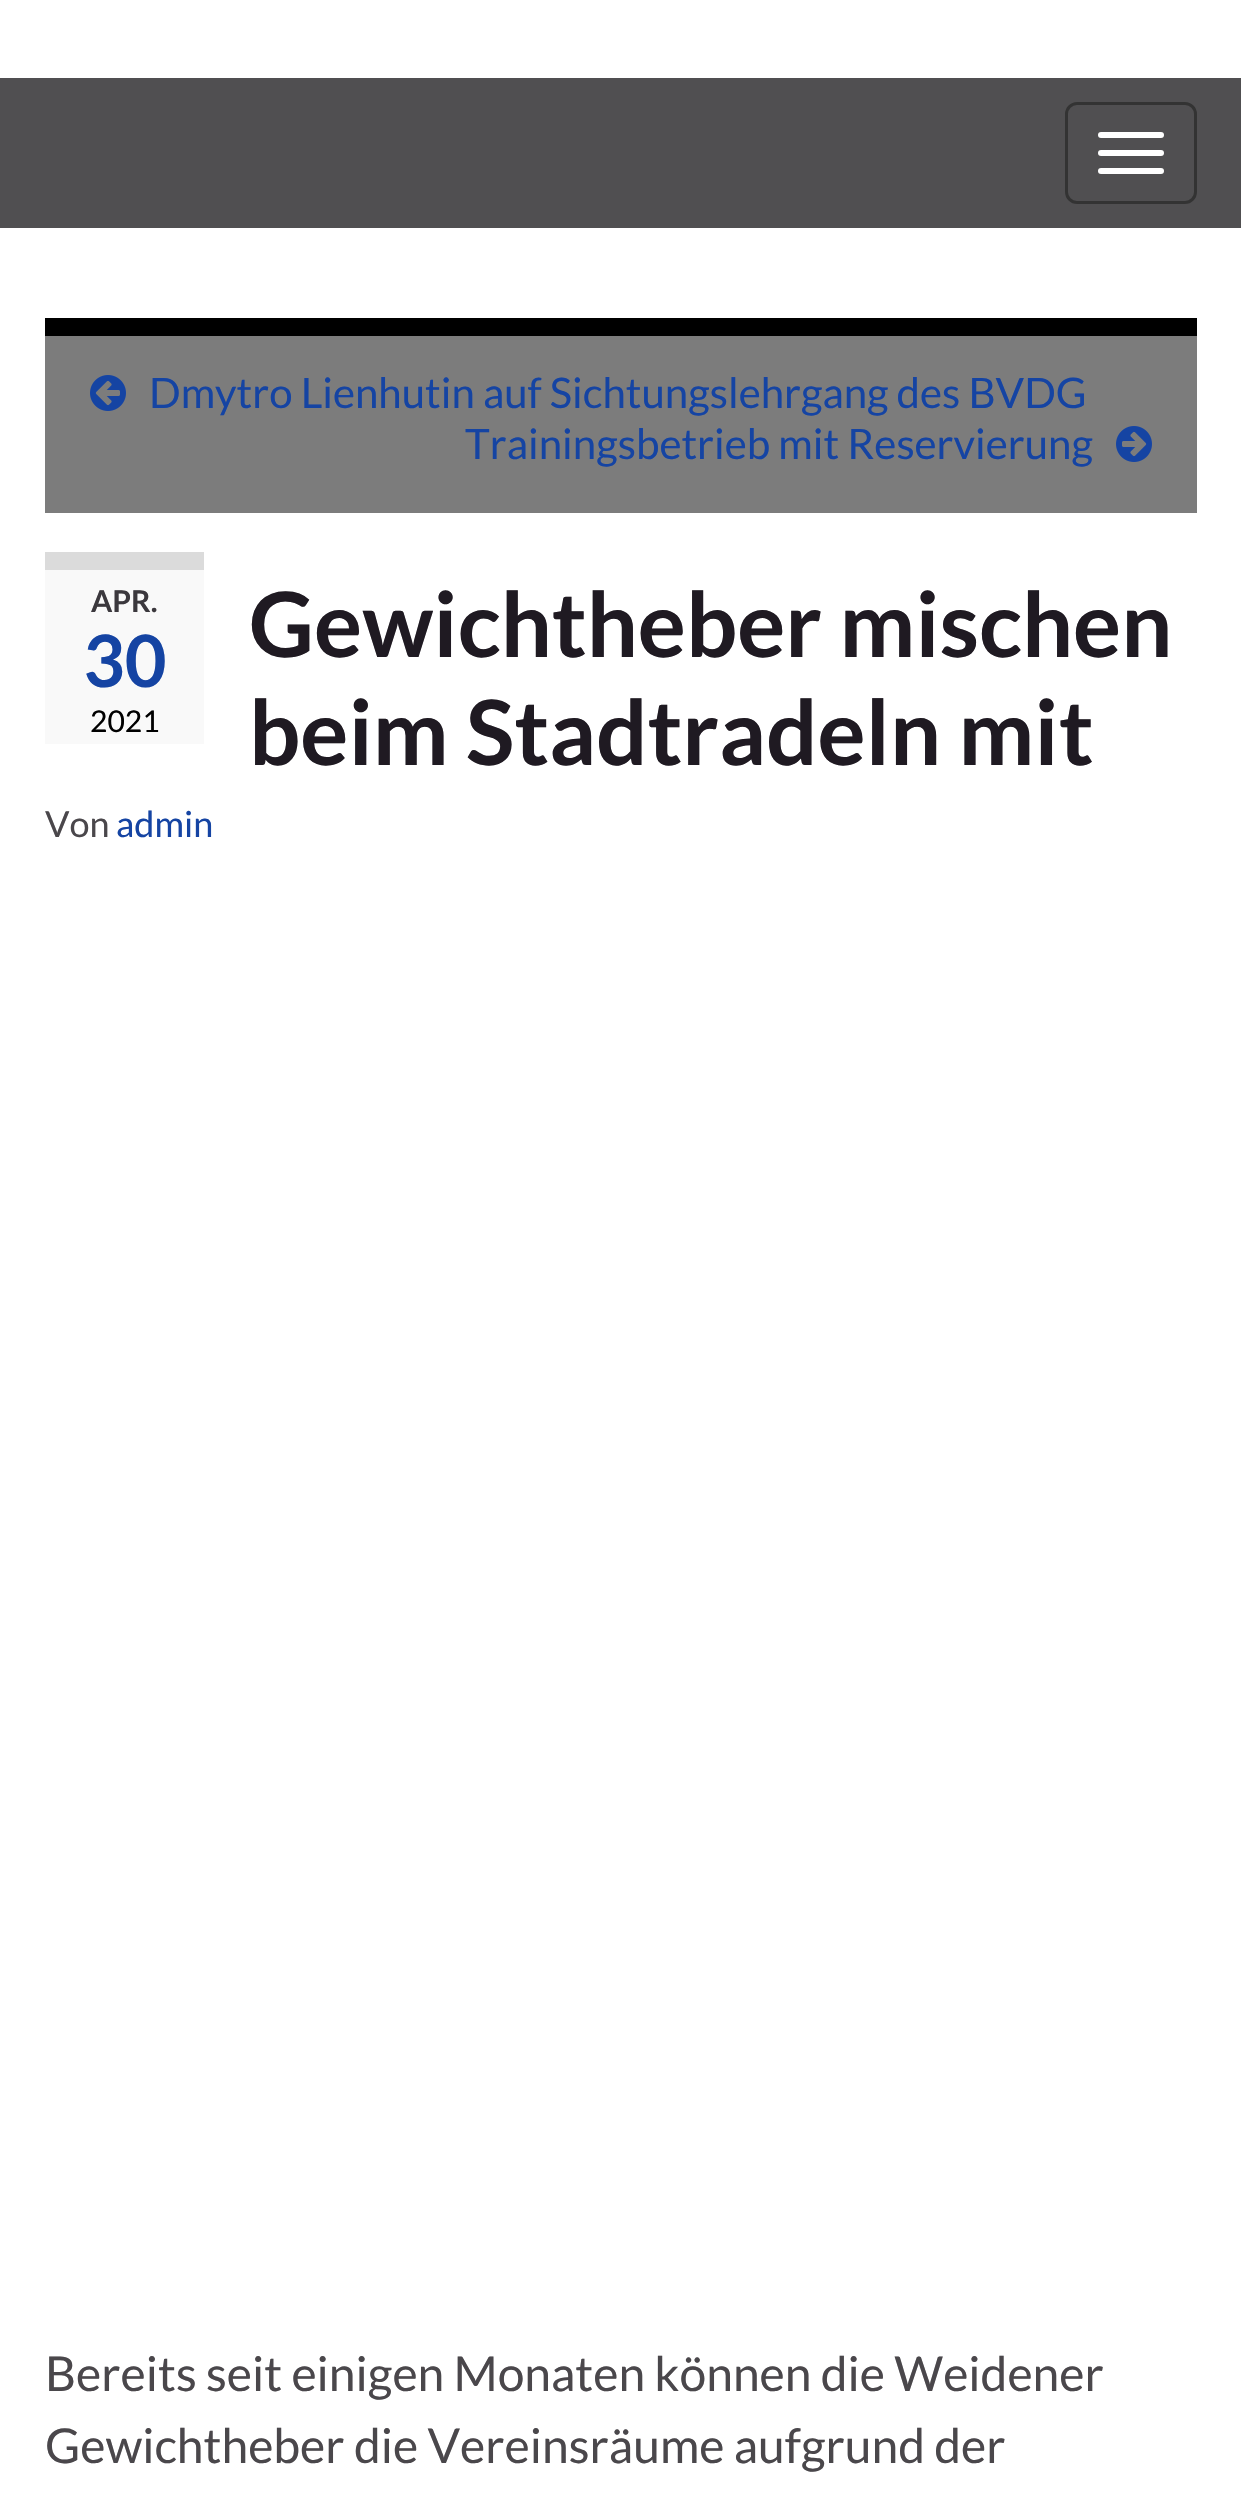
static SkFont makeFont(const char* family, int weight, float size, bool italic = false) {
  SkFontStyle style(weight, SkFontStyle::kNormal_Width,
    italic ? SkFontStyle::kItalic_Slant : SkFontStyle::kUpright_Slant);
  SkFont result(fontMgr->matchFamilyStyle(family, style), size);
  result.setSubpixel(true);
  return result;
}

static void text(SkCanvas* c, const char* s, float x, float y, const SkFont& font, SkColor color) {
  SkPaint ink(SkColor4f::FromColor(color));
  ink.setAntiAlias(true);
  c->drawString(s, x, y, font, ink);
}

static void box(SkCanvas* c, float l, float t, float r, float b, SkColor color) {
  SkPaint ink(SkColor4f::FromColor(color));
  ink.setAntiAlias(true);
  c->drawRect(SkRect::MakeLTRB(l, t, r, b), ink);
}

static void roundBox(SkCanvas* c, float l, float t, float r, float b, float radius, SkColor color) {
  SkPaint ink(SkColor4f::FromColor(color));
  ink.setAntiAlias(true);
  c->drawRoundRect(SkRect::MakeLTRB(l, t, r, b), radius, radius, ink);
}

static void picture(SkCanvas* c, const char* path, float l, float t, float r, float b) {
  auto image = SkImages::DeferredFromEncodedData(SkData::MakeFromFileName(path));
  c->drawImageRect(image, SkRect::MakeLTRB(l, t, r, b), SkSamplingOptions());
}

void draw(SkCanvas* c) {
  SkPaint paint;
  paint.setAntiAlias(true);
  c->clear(0xffffffff);
  box(c, 0, 78, 1241, 228, 0xff504f51);
  paint.setStyle(SkPaint::kStroke_Style);
  paint.setStrokeWidth(3);
  paint.setColor(0xff333333);
  c->drawRoundRect(SkRect::MakeLTRB(1066.5f, 103.5f, 1195.5f, 202.5f), 10.5f, 10.5f, paint);
  roundBox(c, 1098, 132, 1164, 138, 3, 0xffffffff);
  roundBox(c, 1098, 150, 1164, 156, 3, 0xffffffff);
  roundBox(c, 1098, 168, 1164, 174, 3, 0xffffffff);
  box(c, 45, 336, 1197, 513, 0xff7c7c7c);
  box(c, 45, 318, 1197, 336, 0xff000000);
  picture(c, "img_01.png", 90, 375, 126, 411);
  SkFont face1 = makeFont("Lato", 400, 42);
  text(c, "Dmytro Lienhutin auf Sichtungslehrgang des BVDG", 149, 408, face1, 0xff1544a3);
  text(c, "Trainingsbetrieb mit Reservierung", 465, 459, face1, 0xff1544a3);
  picture(c, "img_02.png", 1116, 426, 1152, 462);
  box(c, 45, 570, 204, 744, 0xfff9f9f9);
  box(c, 45, 552, 204, 570, 0xffdbdbdb);
  SkFont face2 = makeFont("Lato", 700, 30);
  text(c, "APR.", 91, 612, face2, 0xff3b383d);
  SkFont face3 = makeFont("Lato", 700, 72);
  text(c, "30", 83, 687, face3, 0xff1544a3);
  SkFont face4 = makeFont("Lato", 400, 30);
  text(c, "2021", 90, 732, face4, 0xff000000);
  SkFont face5 = makeFont("Lato", 700, 90);
  text(c, "Gewichtheber mischen", 249, 657, face5, 0xff1f1a22);
  text(c, "beim Stadtradeln mit", 249, 765, face5, 0xff1f1a22);
  SkFont face6 = makeFont("Lato", 400, 36);
  text(c, "Von", 45, 837, face6, 0xff4a474b);
  text(c, "admin", 116, 837, face6, 0xff1544a3);
  SkFont face7 = makeFont("Lato", 400, 48);
  text(c, "Bereits seit einigen Monaten können die Weidener", 45, 2391, face7, 0xff4a474b);
  text(c, "Gewichtheber die Vereinsräume aufgrund der", 45, 2463, face7, 0xff4a474b);
}
